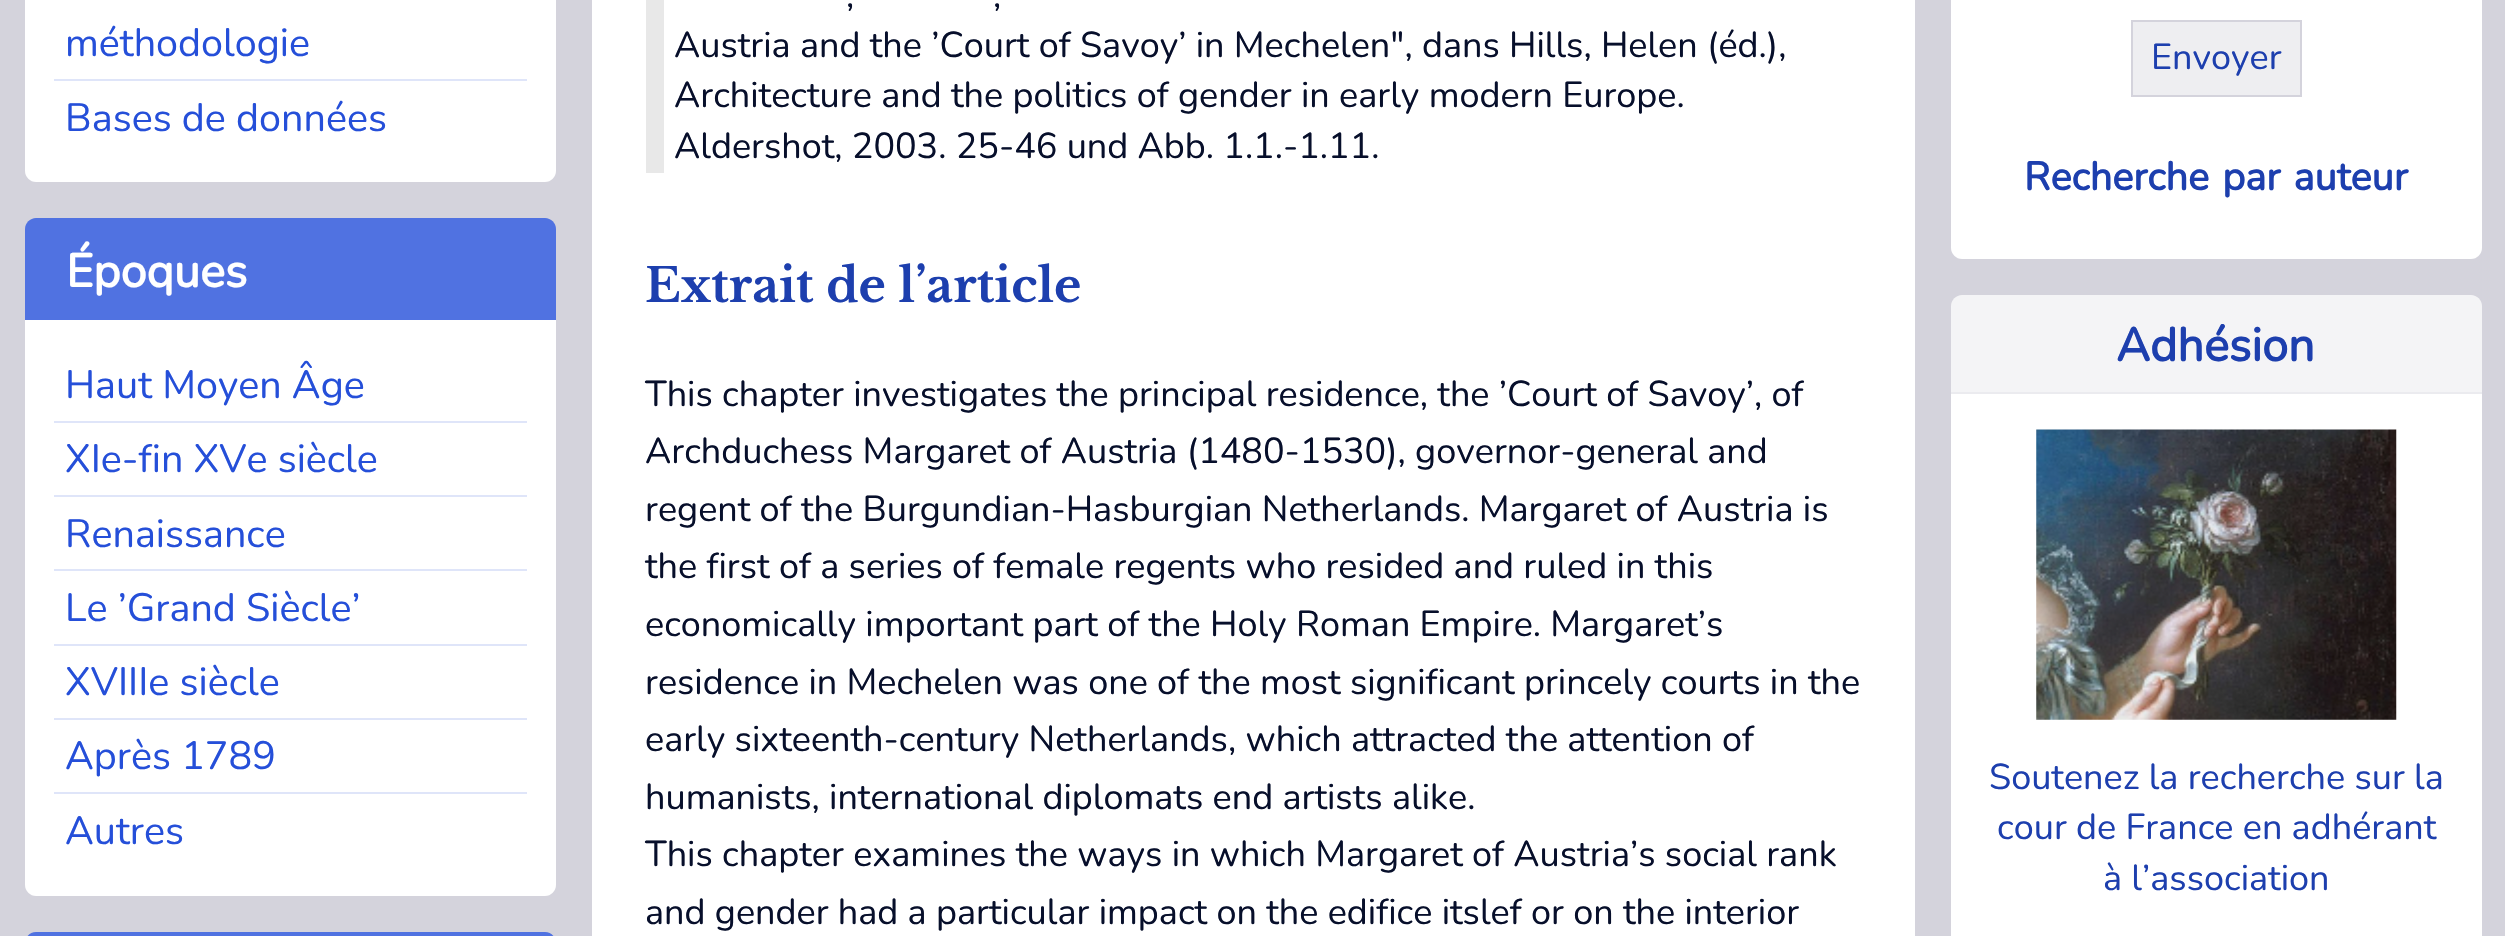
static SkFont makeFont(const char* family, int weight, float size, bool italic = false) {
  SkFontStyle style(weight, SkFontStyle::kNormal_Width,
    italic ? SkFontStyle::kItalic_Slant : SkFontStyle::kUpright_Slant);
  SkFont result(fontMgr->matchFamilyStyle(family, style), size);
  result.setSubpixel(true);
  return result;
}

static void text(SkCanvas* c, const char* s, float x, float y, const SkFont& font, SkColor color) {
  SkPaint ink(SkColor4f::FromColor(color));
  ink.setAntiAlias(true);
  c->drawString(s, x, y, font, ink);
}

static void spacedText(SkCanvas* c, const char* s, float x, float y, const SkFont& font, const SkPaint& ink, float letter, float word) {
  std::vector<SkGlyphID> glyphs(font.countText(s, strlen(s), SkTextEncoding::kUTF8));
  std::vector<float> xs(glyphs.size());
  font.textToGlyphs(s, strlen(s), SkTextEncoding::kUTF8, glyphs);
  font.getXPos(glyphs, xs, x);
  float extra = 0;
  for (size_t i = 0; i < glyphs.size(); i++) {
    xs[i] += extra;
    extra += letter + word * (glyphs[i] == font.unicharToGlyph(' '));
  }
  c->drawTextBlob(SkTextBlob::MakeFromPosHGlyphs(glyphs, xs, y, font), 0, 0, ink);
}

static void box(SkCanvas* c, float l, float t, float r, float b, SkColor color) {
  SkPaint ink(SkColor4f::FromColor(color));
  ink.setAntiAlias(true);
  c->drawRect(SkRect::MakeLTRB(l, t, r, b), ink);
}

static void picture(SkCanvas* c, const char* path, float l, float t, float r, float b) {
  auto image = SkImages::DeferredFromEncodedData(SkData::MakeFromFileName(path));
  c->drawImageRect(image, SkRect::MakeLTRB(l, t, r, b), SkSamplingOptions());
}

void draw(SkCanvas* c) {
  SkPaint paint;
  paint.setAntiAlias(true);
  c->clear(0xffd4d3dc);
  paint.setColor(0xffffffff);
  c->drawPath(SkPathBuilder().moveTo(25, -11).lineTo(556, -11).lineTo(556, 171).cubicTo(556, 177, 551, 182, 545, 182).lineTo(36, 182).cubicTo(30, 182, 25, 177, 25, 171).close().detach(), paint);
  SkFont face1 = makeFont("Nunito", 400, 39.5f);
  text(c, "méthodologie", 65, 56, face1, 0xff254fd9);
  box(c, 54, 79, 527, 81, 0xffdfe5f9);
  text(c, "Bases de données", 65, 131, face1, 0xff254fd9);
  paint.setColor(0xff5072e1);
  c->drawPath(SkPathBuilder().moveTo(36, 218).lineTo(545, 218).cubicTo(551, 218, 556, 223, 556, 229).lineTo(556, 320).lineTo(25, 320).lineTo(25, 229).cubicTo(25, 223, 30, 218, 36, 218).close().detach(), paint);
  SkFont face2 = makeFont("Nunito", 700, 46.75f);
  text(c, "Époques", 66, 287, face2, 0xffffffff);
  paint.setColor(0xffffffff);
  c->drawPath(SkPathBuilder().moveTo(25, 320).lineTo(556, 320).lineTo(556, 885).cubicTo(556, 891, 551, 896, 545, 896).lineTo(36, 896).cubicTo(30, 896, 25, 891, 25, 885).close().detach(), paint);
  text(c, "Haut Moyen Âge", 65, 398, face1, 0xff254fd9);
  box(c, 54, 421, 527, 423, 0xffdfe5f9);
  text(c, "XIe-fin XVe siècle", 65, 472, face1, 0xff254fd9);
  box(c, 54, 495, 527, 497, 0xffdfe5f9);
  text(c, "Renaissance", 65, 547, face1, 0xff254fd9);
  box(c, 54, 569, 527, 571, 0xffdfe5f9);
  text(c, "Le ’Grand Siècle’", 65, 621, face1, 0xff254fd9);
  box(c, 54, 644, 527, 646, 0xffdfe5f9);
  text(c, "XVIIIe siècle", 65, 695, face1, 0xff254fd9);
  box(c, 54, 718, 527, 720, 0xffdfe5f9);
  text(c, "Après 1789", 65, 769, face1, 0xff254fd9);
  box(c, 54, 792, 527, 794, 0xffdfe5f9);
  text(c, "Autres", 65, 844, face1, 0xff254fd9);
  paint.setColor(0xff5072e1);
  c->drawPath(SkPathBuilder().moveTo(36, 932).lineTo(545, 932).cubicTo(551, 932, 556, 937, 556, 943).lineTo(556, 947).lineTo(25, 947).lineTo(25, 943).cubicTo(25, 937, 30, 932, 36, 932).close().detach(), paint);
  box(c, 592, 0, 1915, 936, 0xffffffff);
  box(c, 646, 0, 664, 173, 0xffe8e8e8);
  SkFont face3 = makeFont("Nunito", 400, 36);
  text(c, ",", 846, 7, face3, 0xff070f2b);
  text(c, ",", 993, 7, face3, 0xff070f2b);
  text(c, "Austria and the ’Court of Savoy’ in Mechelen\", dans Hills, Helen (éd.),", 674, 57, face3, 0xff070f2b);
  text(c, "Architecture and the politics of gender in early modern Europe.", 674, 107, face3, 0xff070f2b);
  text(c, "Aldershot, 2003. 25-46 und Abb. 1.1.-1.11.", 674, 158, face3, 0xff070f2b);
  SkFont face4 = makeFont("Libre Baskerville", 700, 46.75f);
  text(c, "Extrait de l’article", 645, 302, face4, 0xff1d3fae);
  text(c, "This chapter investigates the principal residence, the ’Court of Savoy’, of", 645, 406, face3, 0xff070f2b);
  text(c, "Archduchess Margaret of Austria (1480-1530), governor-general and", 645, 463, face3, 0xff070f2b);
  text(c, "regent of the Burgundian-Hasburgian Netherlands. Margaret of Austria is", 645, 521, face3, 0xff070f2b);
  text(c, "the first of a series of female regents who resided and ruled in this", 645, 578, face3, 0xff070f2b);
  text(c, "economically important part of the Holy Roman Empire. Margaret’s", 645, 636, face3, 0xff070f2b);
  text(c, "residence in Mechelen was one of the most significant princely courts in the", 645, 694, face3, 0xff070f2b);
  text(c, "early sixteenth-century Netherlands, which attracted the attention of", 645, 751, face3, 0xff070f2b);
  text(c, "humanists, international diplomats end artists alike.", 645, 809, face3, 0xff070f2b);
  text(c, "This chapter examines the ways in which Margaret of Austria’s social rank", 645, 866, face3, 0xff070f2b);
  text(c, "and gender had a particular impact on the edifice itslef or on the interior", 645, 924, face3, 0xff070f2b);
  paint.setColor(0xffffffff);
  c->drawPath(SkPathBuilder().moveTo(1951, -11).lineTo(2482, -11).lineTo(2482, 248).cubicTo(2482, 254, 2477, 259, 2471, 259).lineTo(1962, 259).cubicTo(1956, 259, 1951, 254, 1951, 248).close().detach(), paint);
  paint.setColor(0xffeeeef1);
  c->drawRect(SkRect::MakeLTRB(2132, 21, 2301, 96), paint);
  paint.setStyle(SkPaint::kStroke_Style);
  paint.setStrokeWidth(2);
  paint.setColor(0xffd4d3dc);
  c->drawRect(SkRect::MakeLTRB(2132, 21, 2301, 96), paint);
  text(c, "Envoyer", 2151, 69, face3, 0xff1d3fae);
  SkFont face5 = makeFont("Nunito", 700, 39.5f);
  paint.setStyle(SkPaint::kFill_Style);
  paint.setColor(0xff1d3fae);
  spacedText(c, "Recherche par auteur", 2024, 190, face5, paint, 0, 3);
  paint.setColor(0xfff4f4f6);
  c->drawPath(SkPathBuilder().moveTo(1962, 295).lineTo(2471, 295).cubicTo(2477, 295, 2482, 300, 2482, 306).lineTo(2482, 394).lineTo(1951, 394).lineTo(1951, 306).cubicTo(1951, 300, 1956, 295, 1962, 295).close().detach(), paint);
  box(c, 1951, 392, 2482, 394, 0xffebebef);
  text(c, "Adhésion", 2116, 361, face2, 0xff1d3fae);
  box(c, 1951, 394, 2482, 936, 0xffffffff);
  picture(c, "img_01.png", 2036, 429, 2397, 720);
  text(c, "Soutenez la recherche sur la", 1989, 789, face3, 0xff1d3fae);
  text(c, "cour de France en adhérant", 1997, 839, face3, 0xff1d3fae);
  text(c, "à l’association", 2103, 890, face3, 0xff1d3fae);
}
